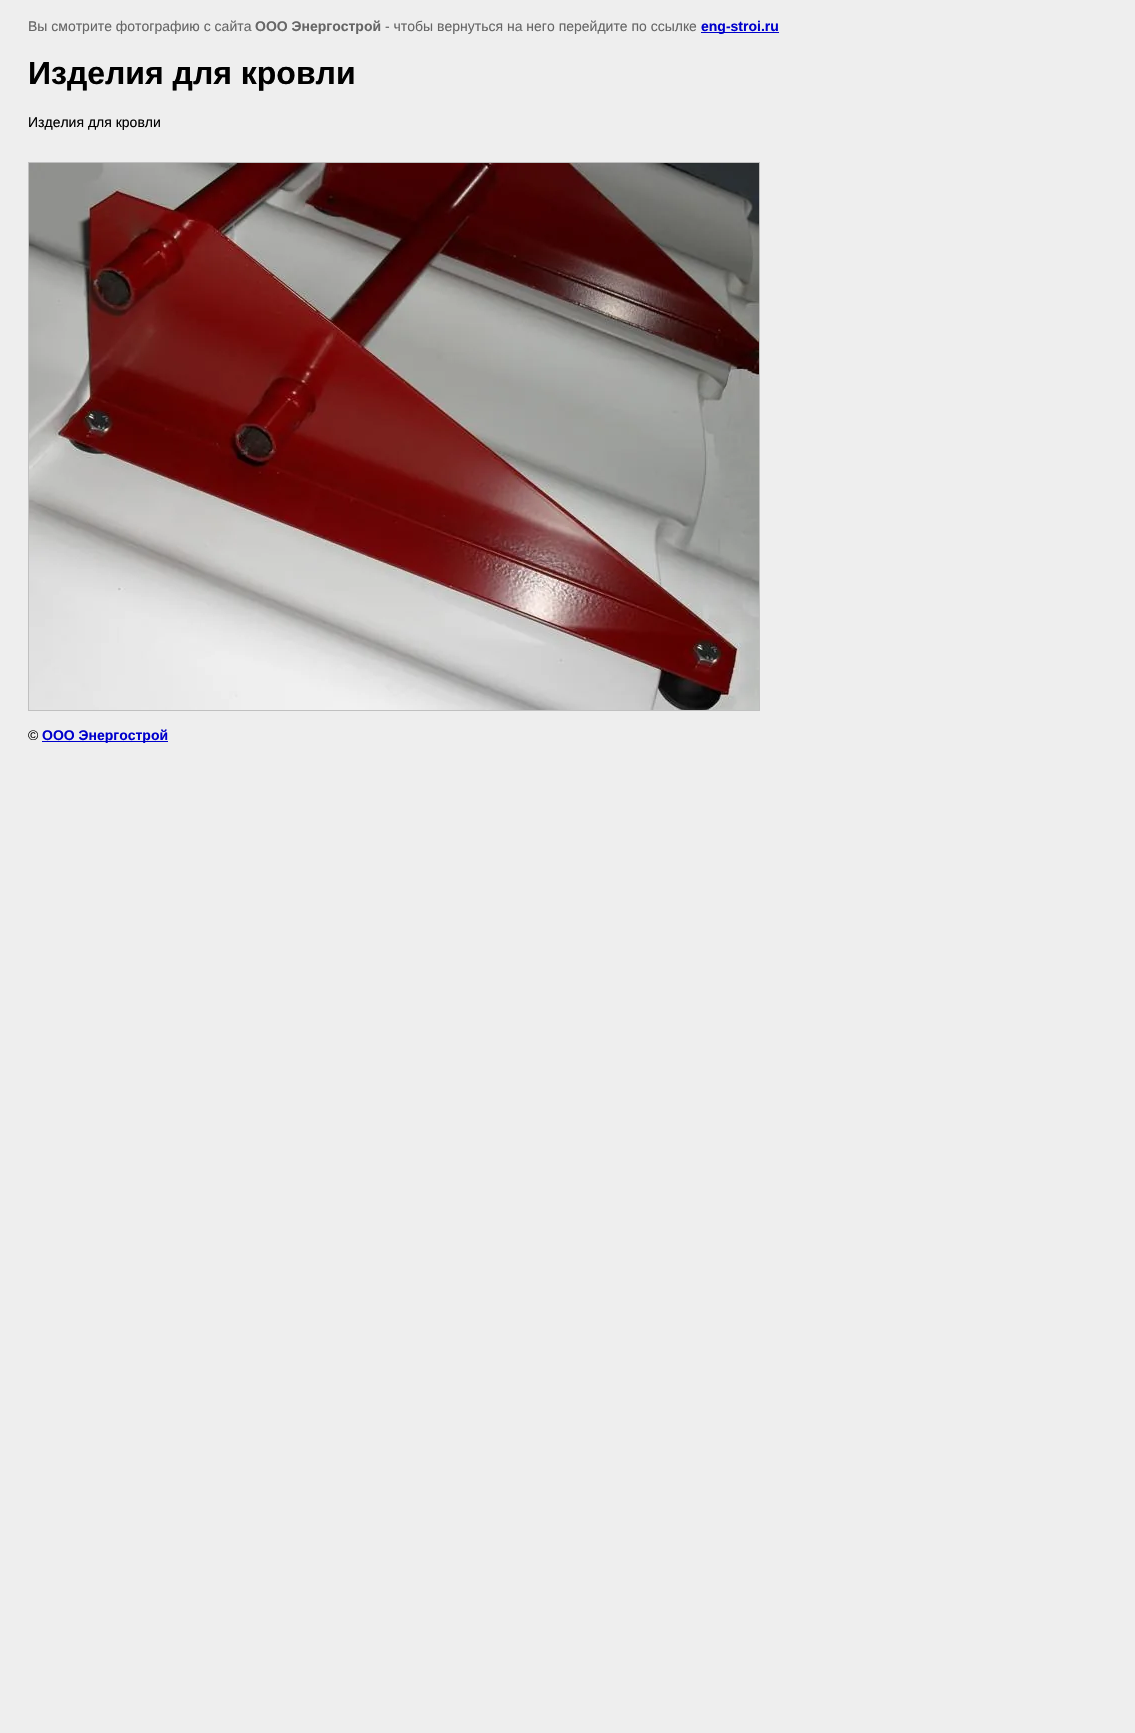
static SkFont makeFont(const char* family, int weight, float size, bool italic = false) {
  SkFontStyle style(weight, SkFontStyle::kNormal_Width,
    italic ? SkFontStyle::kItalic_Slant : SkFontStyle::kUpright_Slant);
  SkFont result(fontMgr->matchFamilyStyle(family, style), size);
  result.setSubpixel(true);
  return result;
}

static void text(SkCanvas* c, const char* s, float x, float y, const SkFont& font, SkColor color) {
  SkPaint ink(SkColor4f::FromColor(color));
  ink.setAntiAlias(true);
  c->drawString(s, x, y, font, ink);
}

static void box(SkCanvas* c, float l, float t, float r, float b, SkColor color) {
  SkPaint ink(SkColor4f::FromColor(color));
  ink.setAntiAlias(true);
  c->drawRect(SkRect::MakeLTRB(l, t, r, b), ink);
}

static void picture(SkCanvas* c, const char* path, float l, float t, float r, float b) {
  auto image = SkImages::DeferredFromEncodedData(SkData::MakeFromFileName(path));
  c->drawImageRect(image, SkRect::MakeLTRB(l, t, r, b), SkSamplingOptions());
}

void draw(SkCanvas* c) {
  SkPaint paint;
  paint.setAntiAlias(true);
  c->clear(0xffeeeeee);
  SkFont face1 = makeFont("Liberation Sans", 400, 14);
  text(c, "Вы смотрите фотографию с сайта", 28, 31, face1, 0xff666666);
  SkFont face2 = makeFont("Liberation Sans", 700, 14);
  text(c, "OOO Энергострой", 255, 31, face2, 0xff666666);
  text(c, "- чтобы вернуться на него перейдите по ссылке", 385, 31, face1, 0xff666666);
  box(c, 701, 32, 779, 33, 0xff0000cc);
  text(c, "eng-stroi.ru", 701, 31, face2, 0xff0000cc);
  SkFont face3 = makeFont("Liberation Sans", 700, 32);
  text(c, "Изделия для кровли", 28, 84, face3, 0xff000000);
  text(c, "Изделия для кровли", 28, 127, face1, 0xff000000);
  paint.setStyle(SkPaint::kStroke_Style);
  paint.setStrokeWidth(1);
  paint.setColor(0xffc0c0c0);
  c->drawRect(SkRect::MakeLTRB(28.5f, 162.5f, 759.5f, 710.5f), paint);
  picture(c, "img_01.png", 29, 163, 759, 710);
  text(c, "©", 28, 740, face1, 0xff000000);
  box(c, 42, 741, 168, 742, 0xff0000cc);
  text(c, "OOO Энергострой", 42, 740, face2, 0xff0000cc);
}
